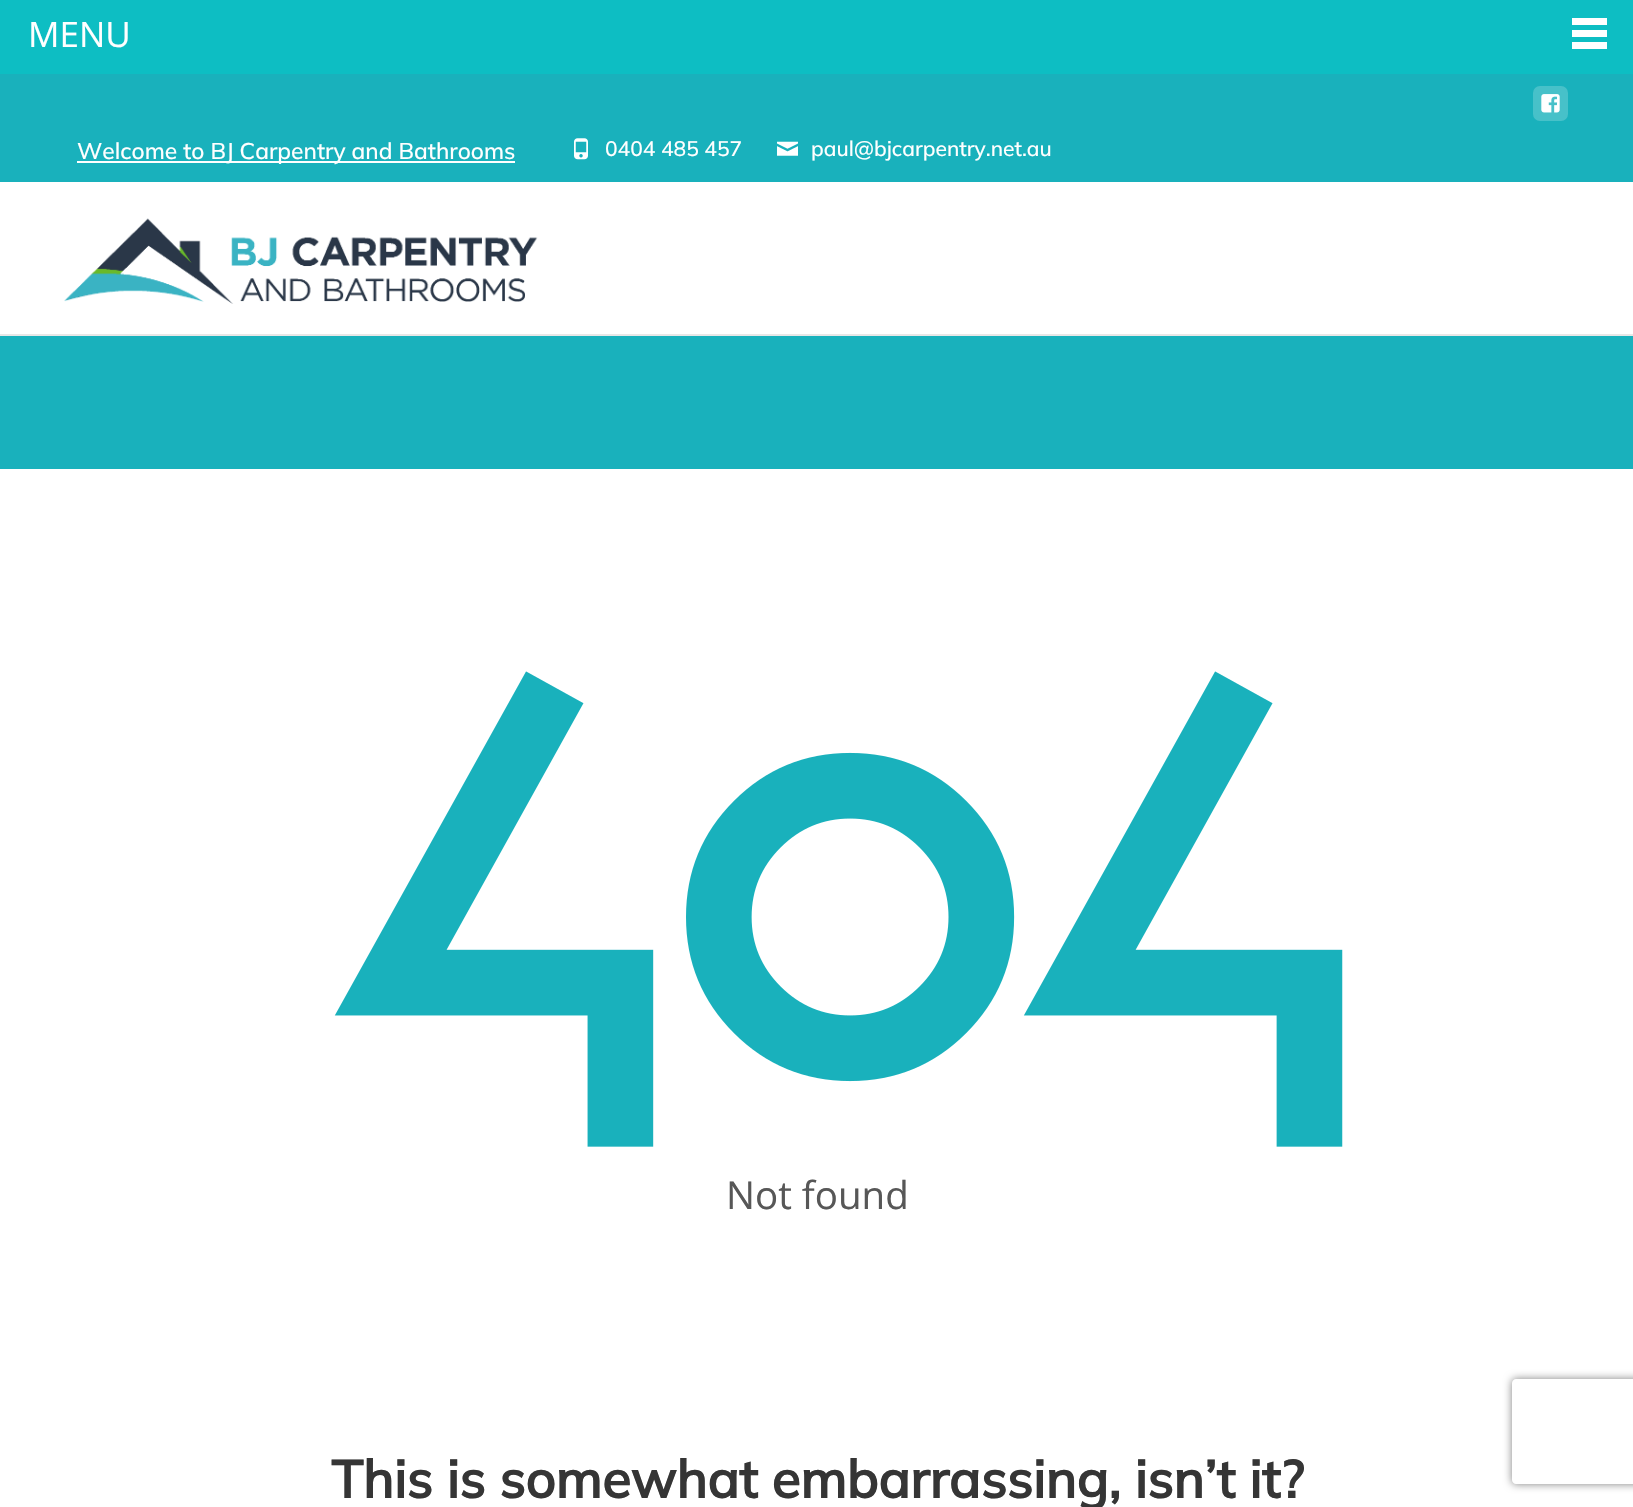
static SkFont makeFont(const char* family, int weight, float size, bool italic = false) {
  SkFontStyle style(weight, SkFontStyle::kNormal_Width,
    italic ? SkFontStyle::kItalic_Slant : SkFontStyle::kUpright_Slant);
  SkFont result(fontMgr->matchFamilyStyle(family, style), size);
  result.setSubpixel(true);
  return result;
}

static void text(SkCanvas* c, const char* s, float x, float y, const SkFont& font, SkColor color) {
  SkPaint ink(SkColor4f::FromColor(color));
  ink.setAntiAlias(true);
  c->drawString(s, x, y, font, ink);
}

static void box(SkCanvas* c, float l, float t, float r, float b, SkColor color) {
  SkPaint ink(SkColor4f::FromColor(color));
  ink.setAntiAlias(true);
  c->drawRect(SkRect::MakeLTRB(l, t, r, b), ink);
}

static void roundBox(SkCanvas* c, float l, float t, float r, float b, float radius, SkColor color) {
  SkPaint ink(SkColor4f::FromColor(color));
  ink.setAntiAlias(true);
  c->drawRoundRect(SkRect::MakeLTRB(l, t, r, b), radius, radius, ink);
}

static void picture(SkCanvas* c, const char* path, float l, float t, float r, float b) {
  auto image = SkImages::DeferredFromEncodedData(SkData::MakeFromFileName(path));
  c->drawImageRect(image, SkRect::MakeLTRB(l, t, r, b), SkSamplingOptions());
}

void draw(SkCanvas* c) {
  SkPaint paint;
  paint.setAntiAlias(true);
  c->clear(0xffffffff);
  box(c, 0, 0, 1633, 74, 0xff0dbec3);
  SkFont face1 = makeFont("Open Sans", 400, 35);
  text(c, "MENU", 28, 47, face1, 0xffffffff);
  box(c, 1572, 18, 1607, 25, 0xffffffff);
  box(c, 1572, 30, 1607, 37, 0xffffffff);
  box(c, 1572, 42, 1607, 49, 0xffffffff);
  box(c, 0, 74, 1633, 182, 0xff19b1bc);
  roundBox(c, 1533, 86, 1568, 121, 7, 0xff47c1c9);
  picture(c, "img_01.png", 1541, 94, 1560, 113);
  box(c, 77, 161, 515, 163, 0xffffffff);
  SkFont face2 = makeFont("Mulish", 500, 22.75f);
  text(c, "Welcome to BJ Carpentry and Bathrooms", 77, 159, face2, 0xffffffff);
  picture(c, "img_02.png", 574, 138, 588, 160);
  SkFont face3 = makeFont("Mulish", 500, 21);
  text(c, "0404 485 457", 605, 156, face3, 0xffffffff);
  picture(c, "img_03.png", 777, 141, 798, 156);
  text(c, "paul@bjcarpentry.net.au", 811, 156, face3, 0xffffffff);
  box(c, 0, 334, 1633, 336, 0xffe7e7e7);
  picture(c, "img_04.png", 64, 218, 538, 304);
  box(c, 0, 336, 1633, 469, 0xff19b1bc);
  picture(c, "img_05.png", 334, 671, 1343, 1147);
  SkFont face4 = makeFont("Open Sans", 400, 38.5f);
  text(c, "Not found", 726, 1209, face4, 0xff575757);
  SkFont face5 = makeFont("Mulish", 700, 52.5f);
  text(c, "This is somewhat embarrassing, isn’t it?", 331, 1498, face5, 0xff353535);
  c->save();
  c->clipPath(SkPathBuilder(SkPathFillType::kEvenOdd).moveTo(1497, 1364).lineTo(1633, 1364).lineTo(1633, 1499).lineTo(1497, 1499).close().moveTo(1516, 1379).lineTo(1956, 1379).cubicTo(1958, 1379, 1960, 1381, 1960, 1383).lineTo(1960, 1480).cubicTo(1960, 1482, 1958, 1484, 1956, 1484).lineTo(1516, 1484).cubicTo(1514, 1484, 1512, 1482, 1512, 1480).lineTo(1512, 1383).cubicTo(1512, 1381, 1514, 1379, 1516, 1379).close().detach(), true);
  paint.setColor(0xff808080);
  paint.setMaskFilter(SkMaskFilter::MakeBlur(kNormal_SkBlurStyle, 4.5f));
  c->drawRoundRect(SkRect::MakeLTRB(1512, 1379, 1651, 1484), 4, 4, paint);
  paint.setMaskFilter(nullptr);
  c->restore();
}
